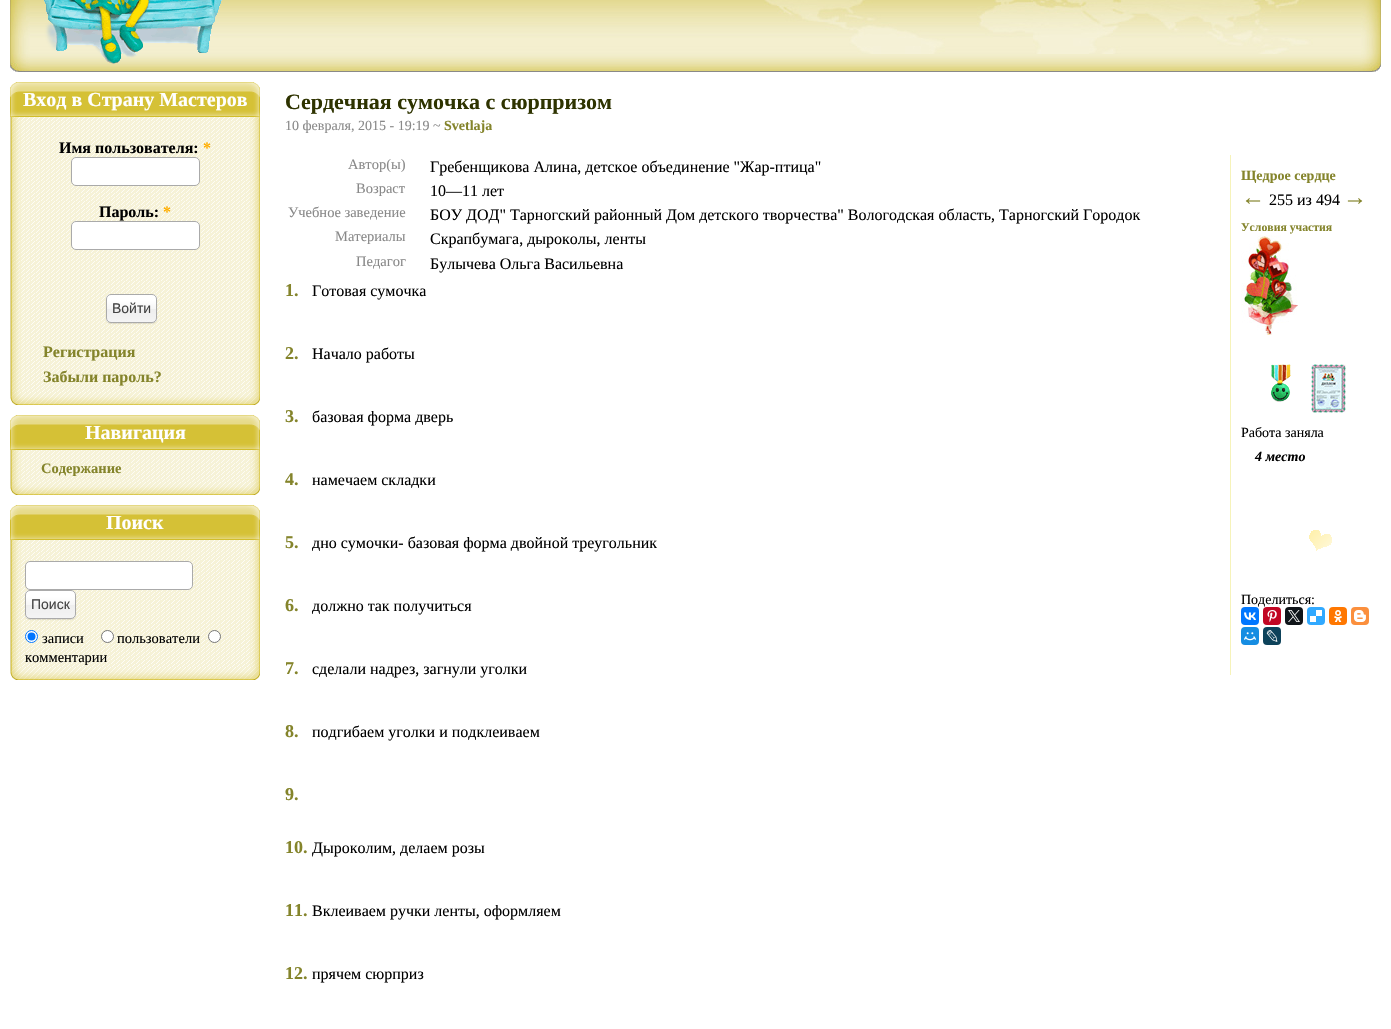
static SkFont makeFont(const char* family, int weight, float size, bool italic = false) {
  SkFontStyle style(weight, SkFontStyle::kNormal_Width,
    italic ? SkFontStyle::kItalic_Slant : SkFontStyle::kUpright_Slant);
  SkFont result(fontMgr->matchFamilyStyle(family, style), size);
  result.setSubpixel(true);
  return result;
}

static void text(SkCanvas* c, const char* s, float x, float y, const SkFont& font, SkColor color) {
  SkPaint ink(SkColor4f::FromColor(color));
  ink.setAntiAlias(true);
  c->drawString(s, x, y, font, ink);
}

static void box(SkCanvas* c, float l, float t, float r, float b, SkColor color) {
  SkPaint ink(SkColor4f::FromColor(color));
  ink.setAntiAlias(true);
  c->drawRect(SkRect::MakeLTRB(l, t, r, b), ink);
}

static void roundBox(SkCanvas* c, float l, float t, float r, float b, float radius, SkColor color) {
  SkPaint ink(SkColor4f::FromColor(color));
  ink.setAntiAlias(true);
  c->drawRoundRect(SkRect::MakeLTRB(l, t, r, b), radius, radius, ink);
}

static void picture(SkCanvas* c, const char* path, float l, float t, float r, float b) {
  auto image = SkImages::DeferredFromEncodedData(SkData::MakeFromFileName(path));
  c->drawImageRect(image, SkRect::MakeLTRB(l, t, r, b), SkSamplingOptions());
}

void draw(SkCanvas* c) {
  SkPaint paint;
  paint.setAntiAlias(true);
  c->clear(0xffffffff);
  picture(c, "img_01.png", 30, 0, 764, 72);
  picture(c, "img_02.png", 10, 0, 30, 72);
  picture(c, "img_03.png", 764, 0, 1381, 72);
  picture(c, "img_04.png", 44, 0, 222, 64);
  picture(c, "img_05.png", 10, 117, 260, 392);
  picture(c, "img_06.png", 10, 82, 260, 117);
  SkFont face1 = makeFont("Liberation Serif", 700, 20);
  text(c, "Вход в Страну Мастеров", 23, 106, face1, 0xffffffff);
  SkFont face2 = makeFont("Liberation Serif", 700, 16);
  text(c, "Имя пользователя:", 59, 153, face2, 0xff000000);
  text(c, "*", 203, 153, face2, 0xffffae00);
  paint.setColor(0xffffffff);
  c->drawRoundRect(SkRect::MakeLTRB(71.5f, 157.5f, 199.5f, 185.5f), 4.5f, 4.5f, paint);
  paint.setStyle(SkPaint::kStroke_Style);
  paint.setStrokeWidth(1);
  paint.setColor(0xffaaaaaa);
  c->drawRoundRect(SkRect::MakeLTRB(71.5f, 157.5f, 199.5f, 185.5f), 4.5f, 4.5f, paint);
  text(c, "Пароль:", 99, 217, face2, 0xff000000);
  text(c, "*", 163, 217, face2, 0xffffae00);
  paint.setStyle(SkPaint::kFill_Style);
  paint.setColor(0xffffffff);
  c->drawRoundRect(SkRect::MakeLTRB(71.5f, 221.5f, 199.5f, 249.5f), 4.5f, 4.5f, paint);
  paint.setStyle(SkPaint::kStroke_Style);
  paint.setColor(0xffaaaaaa);
  c->drawRoundRect(SkRect::MakeLTRB(71.5f, 221.5f, 199.5f, 249.5f), 4.5f, 4.5f, paint);
  paint.setStyle(SkPaint::kFill_Style);
  paint.setColor(0x1a000000);
  paint.setMaskFilter(SkMaskFilter::MakeBlur(kNormal_SkBlurStyle, 0.5f));
  c->drawRoundRect(SkRect::MakeLTRB(106, 295, 157, 324), 5, 5, paint);
  paint.setMaskFilter(nullptr);
  c->save();
  c->clipPath(SkPathBuilder().moveTo(111, 294).lineTo(152, 294).cubicTo(155, 294, 157, 296, 157, 299).lineTo(157, 318).cubicTo(157, 321, 155, 323, 152, 323).lineTo(111, 323).cubicTo(108, 323, 106, 321, 106, 318).lineTo(106, 299).cubicTo(106, 296, 108, 294, 111, 294).close().detach(), true);
  {
    const SkColor colors[] = {0xffffffff, 0xfff6f6f6, 0xffeeeeee, 0xfff4f4f4};
    const float stops[] = {0.2f, 0.5f, 0.52f, 1};
    const SkPoint ends[] = {{132, 295}, {132, 322}};
    paint.setShader(SkGradientShader::MakeLinear(ends, colors, stops, 4, SkTileMode::kClamp));
    paint.setAlpha(255);
  }
  c->drawRect(SkRect::MakeLTRB(106, 295, 157, 322), paint);
  c->restore();
  paint.setStyle(SkPaint::kStroke_Style);
  paint.setShader(nullptr);
  paint.setColor(0xffaaaaaa);
  c->drawRoundRect(SkRect::MakeLTRB(106.5f, 294.5f, 156.5f, 322.5f), 4.5f, 4.5f, paint);
  SkFont face3 = makeFont("Liberation Sans", 400, 14);
  text(c, "Войти", 112, 313, face3, 0xff444444);
  text(c, "Регистрация", 43, 357, face2, 0xff84842b);
  text(c, "Забыли пароль?", 43, 382, face2, 0xff84842b);
  picture(c, "img_07.png", 10, 392, 260, 405);
  picture(c, "img_08.png", 10, 450, 260, 482);
  picture(c, "img_06.png", 10, 415, 260, 450);
  text(c, "Навигация", 85, 439, face1, 0xffffffff);
  SkFont face4 = makeFont("Liberation Serif", 700, 14.5f);
  text(c, "Содержание", 41, 473, face4, 0xff84842b);
  picture(c, "img_07.png", 10, 482, 260, 495);
  picture(c, "img_09.png", 10, 540, 260, 667);
  picture(c, "img_06.png", 10, 505, 260, 540);
  text(c, "Поиск", 106, 529, face1, 0xffffffff);
  paint.setStyle(SkPaint::kFill_Style);
  paint.setColor(0xffffffff);
  c->drawRoundRect(SkRect::MakeLTRB(25.5f, 561.5f, 192.5f, 589.5f), 4.5f, 4.5f, paint);
  paint.setStyle(SkPaint::kStroke_Style);
  paint.setColor(0xffaaaaaa);
  c->drawRoundRect(SkRect::MakeLTRB(25.5f, 561.5f, 192.5f, 589.5f), 4.5f, 4.5f, paint);
  paint.setStyle(SkPaint::kFill_Style);
  paint.setColor(0x1a000000);
  paint.setMaskFilter(SkMaskFilter::MakeBlur(kNormal_SkBlurStyle, 0.5f));
  c->drawRoundRect(SkRect::MakeLTRB(25, 591, 76, 620), 5, 5, paint);
  paint.setMaskFilter(nullptr);
  c->save();
  c->clipPath(SkPathBuilder().moveTo(30, 590).lineTo(71, 590).cubicTo(74, 590, 76, 592, 76, 595).lineTo(76, 614).cubicTo(76, 617, 74, 619, 71, 619).lineTo(30, 619).cubicTo(27, 619, 25, 617, 25, 614).lineTo(25, 595).cubicTo(25, 592, 27, 590, 30, 590).close().detach(), true);
  {
    const SkColor colors[] = {0xffffffff, 0xfff6f6f6, 0xffeeeeee, 0xfff4f4f4};
    const float stops[] = {0.2f, 0.5f, 0.52f, 1};
    const SkPoint ends[] = {{51, 591}, {51, 618}};
    paint.setShader(SkGradientShader::MakeLinear(ends, colors, stops, 4, SkTileMode::kClamp));
    paint.setAlpha(255);
  }
  c->drawRect(SkRect::MakeLTRB(25, 591, 76, 618), paint);
  c->restore();
  paint.setStyle(SkPaint::kStroke_Style);
  paint.setShader(nullptr);
  paint.setColor(0xffaaaaaa);
  c->drawRoundRect(SkRect::MakeLTRB(25.5f, 590.5f, 75.5f, 618.5f), 4.5f, 4.5f, paint);
  text(c, "Поиск", 31, 609, face3, 0xff444444);
  paint.setStyle(SkPaint::kFill_Style);
  paint.setColor(0xffffffff);
  c->drawCircle(31.5f, 636.5f, 6, paint);
  paint.setStyle(SkPaint::kStroke_Style);
  paint.setColor(0xff0075ff);
  c->drawCircle(31.5f, 636.5f, 6, paint);
  paint.setStyle(SkPaint::kFill_Style);
  c->drawCircle(31.5f, 636.5f, 4, paint);
  SkFont face5 = makeFont("Liberation Serif", 400, 14.5f);
  text(c, "записи", 42, 643, face5, 0xff000000);
  paint.setColor(0xffffffff);
  c->drawCircle(107.5f, 636.5f, 6, paint);
  paint.setStyle(SkPaint::kStroke_Style);
  paint.setColor(0xff767676);
  c->drawCircle(107.5f, 636.5f, 6, paint);
  text(c, "пользователи", 117, 643, face5, 0xff000000);
  paint.setStyle(SkPaint::kFill_Style);
  paint.setColor(0xffffffff);
  c->drawCircle(214.5f, 636.5f, 6, paint);
  paint.setStyle(SkPaint::kStroke_Style);
  paint.setColor(0xff767676);
  c->drawCircle(214.5f, 636.5f, 6, paint);
  text(c, "комментарии", 25, 662, face5, 0xff000000);
  picture(c, "img_07.png", 10, 667, 260, 680);
  SkFont face6 = makeFont("Liberation Serif", 700, 22);
  text(c, "Сердечная сумочка с сюрпризом", 285, 109, face6, 0xff2e3300);
  SkFont face7 = makeFont("Liberation Serif", 400, 14);
  text(c, "10 февраля, 2015 - 19:19 ~", 285, 130, face7, 0xff898989);
  SkFont face8 = makeFont("Liberation Serif", 700, 14);
  text(c, "Svetlaja", 444, 130, face8, 0xff84842b);
  text(c, "Автор(ы)", 348, 169, face5, 0xff898989);
  SkFont face9 = makeFont("Liberation Serif", 400, 16);
  text(c, "Гребенщикова Алина, детское объединение \"Жар-птица\"", 430, 172, face9, 0xff000000);
  text(c, "Возраст", 356, 193, face5, 0xff898989);
  text(c, "10—11 лет", 430, 196, face9, 0xff000000);
  text(c, "Учебное заведение", 288, 217, face5, 0xff898989);
  text(c, "БОУ ДОД\" Тарногский районный Дом детского творчества\" Вологодская область, Тарногский Городок", 430, 220, face9, 0xff000000);
  text(c, "Материалы", 335, 241, face5, 0xff898989);
  text(c, "Скрапбумага, дыроколы, ленты", 430, 244, face9, 0xff000000);
  text(c, "Педагог", 356, 266, face5, 0xff898989);
  text(c, "Булычева Ольга Васильевна", 430, 269, face9, 0xff000000);
  box(c, 1230, 155, 1231, 675, 0xfff6f3ba);
  text(c, "Щедрое сердце", 1241, 180, face8, 0xff84842b);
  SkFont face10 = makeFont("Liberation Serif", 700, 24);
  text(c, "←", 1241, 205, face10, 0xff84842b);
  text(c, "255 из 494", 1269, 205, face9, 0xff000000);
  text(c, "→", 1343, 205, face10, 0xff84842b);
  SkFont face11 = makeFont("Liberation Serif", 700, 11.75f);
  text(c, "Условия участия", 1241, 231, face11, 0xff84842b);
  picture(c, "img_10.png", 1241, 235, 1298, 335);
  picture(c, "img_11.png", 1271, 364, 1291, 402);
  picture(c, "img_12.png", 1311, 364, 1346, 413);
  text(c, "Работа заняла", 1241, 437, face7, 0xff000000);
  SkFont face12 = makeFont("Liberation Serif", 700, 14, true);
  text(c, "4 место", 1255, 461, face12, 0xff000000);
  picture(c, "img_13.png", 1309, 530, 1332, 551);
  text(c, "Поделиться:", 1241, 604, face7, 0xff000000);
  roundBox(c, 1241, 607, 1259, 625, 4, 0xff0077ff);
  picture(c, "img_14.png", 1244, 612, 1256, 620);
  roundBox(c, 1263, 607, 1281, 625, 4, 0xffc20724);
  picture(c, "img_15.png", 1267, 610, 1277, 622);
  roundBox(c, 1285, 607, 1303, 625, 4, 0xff0f1419);
  picture(c, "img_16.png", 1288, 610, 1300, 622);
  roundBox(c, 1307, 607, 1325, 625, 4, 0xff31a9ff);
  picture(c, "img_17.png", 1310, 610, 1322, 622);
  roundBox(c, 1329, 607, 1347, 625, 4, 0xffff7700);
  picture(c, "img_18.png", 1334, 610, 1342, 622);
  roundBox(c, 1351, 607, 1369, 625, 4, 0xfffb8f3d);
  picture(c, "img_19.png", 1354, 610, 1366, 622);
  roundBox(c, 1241, 627, 1259, 645, 4, 0xff168de2);
  picture(c, "img_20.png", 1244, 632, 1256, 641);
  roundBox(c, 1263, 627, 1281, 645, 4, 0xff0d425a);
  picture(c, "img_21.png", 1266, 630, 1278, 642);
  SkFont face13 = makeFont("Liberation Serif", 700, 18);
  text(c, "1.", 285, 296, face13, 0xff84842b);
  text(c, "Готовая сумочка", 312, 296, face9, 0xff000000);
  text(c, "2.", 285, 359, face13, 0xff84842b);
  text(c, "Начало работы", 312, 359, face9, 0xff000000);
  text(c, "3.", 285, 422, face13, 0xff84842b);
  text(c, "базовая форма дверь", 312, 422, face9, 0xff000000);
  text(c, "4.", 285, 485, face13, 0xff84842b);
  text(c, "намечаем складки", 312, 485, face9, 0xff000000);
  text(c, "5.", 285, 548, face13, 0xff84842b);
  text(c, "дно сумочки- базовая форма двойной треугольник", 312, 548, face9, 0xff000000);
  text(c, "6.", 285, 611, face13, 0xff84842b);
  text(c, "должно так получиться", 312, 611, face9, 0xff000000);
  text(c, "7.", 285, 674, face13, 0xff84842b);
  text(c, "сделали надрез, загнули уголки", 312, 674, face9, 0xff000000);
  text(c, "8.", 285, 737, face13, 0xff84842b);
  text(c, "подгибаем уголки и подклеиваем", 312, 737, face9, 0xff000000);
  text(c, "9.", 285, 800, face13, 0xff84842b);
  text(c, "10.", 285, 853, face13, 0xff84842b);
  text(c, "Дыроколим, делаем розы", 312, 853, face9, 0xff000000);
  text(c, "11.", 285, 916, face13, 0xff84842b);
  text(c, "Вклеиваем ручки ленты, оформляем", 312, 916, face9, 0xff000000);
  text(c, "12.", 285, 979, face13, 0xff84842b);
  text(c, "прячем сюрприз", 312, 979, face9, 0xff000000);
}
